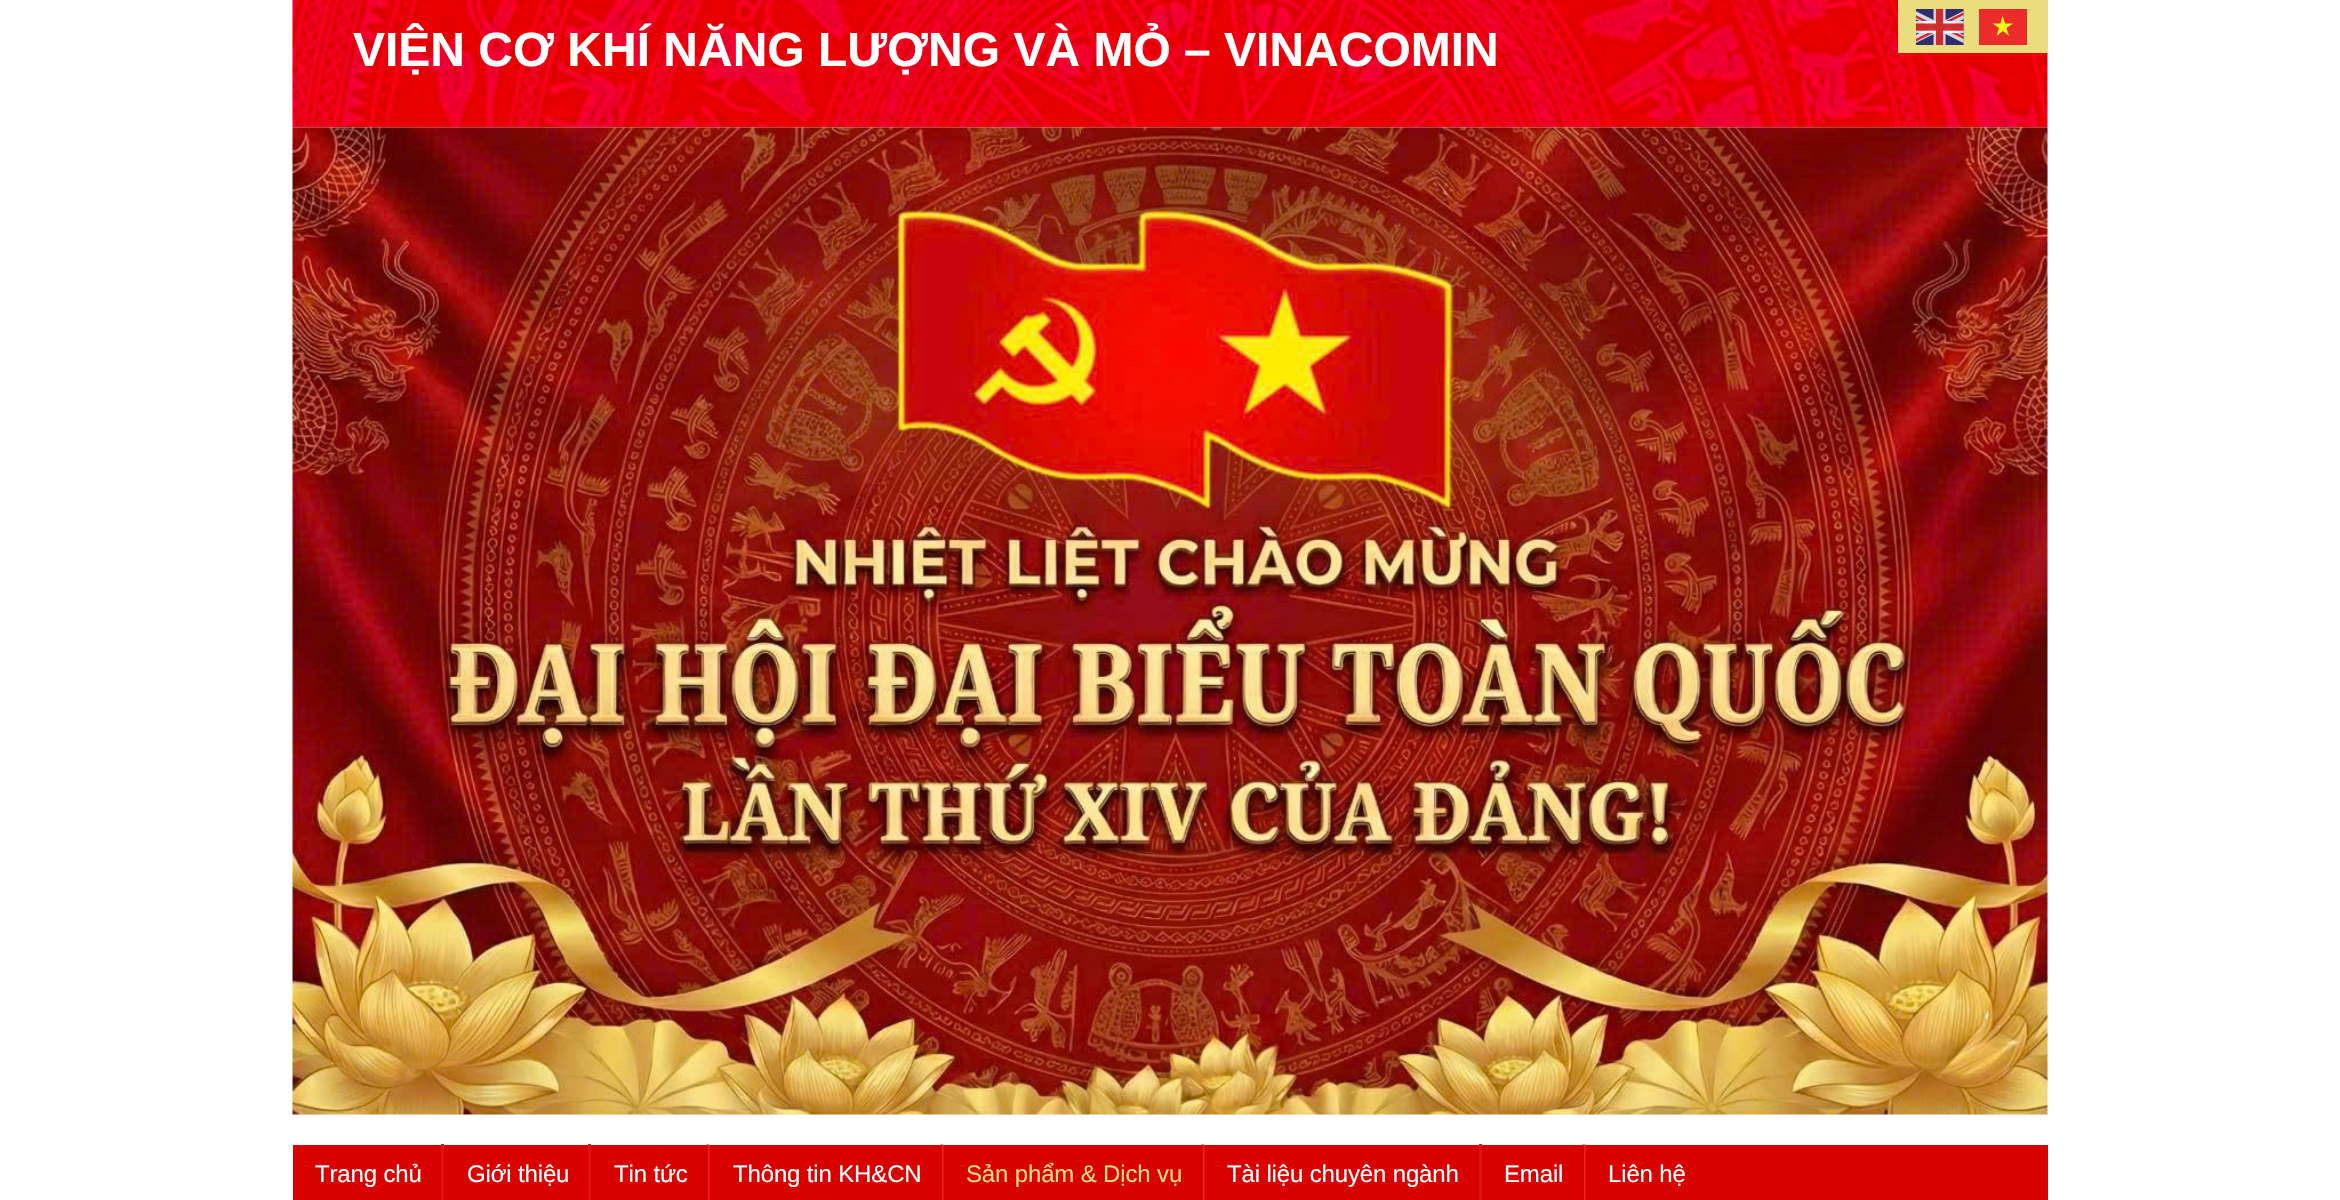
static SkFont makeFont(const char* family, int weight, float size, bool italic = false) {
  SkFontStyle style(weight, SkFontStyle::kNormal_Width,
    italic ? SkFontStyle::kItalic_Slant : SkFontStyle::kUpright_Slant);
  SkFont result(fontMgr->matchFamilyStyle(family, style), size);
  result.setSubpixel(true);
  return result;
}

static void text(SkCanvas* c, const char* s, float x, float y, const SkFont& font, SkColor color) {
  SkPaint ink(SkColor4f::FromColor(color));
  ink.setAntiAlias(true);
  c->drawString(s, x, y, font, ink);
}

static void spacedText(SkCanvas* c, const char* s, float x, float y, const SkFont& font, const SkPaint& ink, float letter, float word) {
  std::vector<SkGlyphID> glyphs(font.countText(s, strlen(s), SkTextEncoding::kUTF8));
  std::vector<float> xs(glyphs.size());
  font.textToGlyphs(s, strlen(s), SkTextEncoding::kUTF8, glyphs);
  font.getXPos(glyphs, xs, x);
  float extra = 0;
  for (size_t i = 0; i < glyphs.size(); i++) {
    xs[i] += extra;
    extra += letter + word * (glyphs[i] == font.unicharToGlyph(' '));
  }
  c->drawTextBlob(SkTextBlob::MakeFromPosHGlyphs(glyphs, xs, y, font), 0, 0, ink);
}

static void box(SkCanvas* c, float l, float t, float r, float b, SkColor color) {
  SkPaint ink(SkColor4f::FromColor(color));
  ink.setAntiAlias(true);
  c->drawRect(SkRect::MakeLTRB(l, t, r, b), ink);
}

static void picture(SkCanvas* c, const char* path, float l, float t, float r, float b) {
  auto image = SkImages::DeferredFromEncodedData(SkData::MakeFromFileName(path));
  c->drawImageRect(image, SkRect::MakeLTRB(l, t, r, b), SkSamplingOptions());
}

void draw(SkCanvas* c) {
  SkPaint paint;
  paint.setAntiAlias(true);
  c->clear(0xffffffff);
  picture(c, "img_03.png", 292, 0, 2048, 128);
  box(c, 1898, 0, 2048, 53, 0xffebdd7e);
  picture(c, "img_01.png", 1916, 9, 1964, 45);
  box(c, 1979, 9, 2027, 45, 0xffec2c2a);
  paint.setColor(0xfffbf819);
  c->drawPath(SkPathBuilder(SkPathFillType::kEvenOdd).moveTo(2009, 36).lineTo(2003, 31).lineTo(1996.5f, 36).lineTo(1999, 28).lineTo(1992.5f, 23.5f).lineTo(2000.5f, 23.5f).lineTo(2002.5f, 15.5f).lineTo(2005, 23.5f).lineTo(2013, 23.5f).lineTo(2006.5f, 28).close().detach(), paint);
  picture(c, "img_02.png", 292, 127, 2048, 1115);
  SkFont face1 = makeFont("Liberation Sans", 700, 48);
  text(c, "VIỆN CƠ KHÍ NĂNG LƯỢNG VÀ MỎ – VINACOMIN", 353, 66, face1, 0xffffffff);
  box(c, 293, 1145, 2048, 1200, 0xffd90000);
  SkFont face2 = makeFont("Liberation Sans", 400, 24);
  paint.setColor(0xffffffff);
  spacedText(c, "Trang chủ", 315, 1182, face2, paint, -0.15f, 0);
  box(c, 441, 1144, 444, 1200, 0xffde1212);
  spacedText(c, "Giới thiệu", 467, 1182, face2, paint, -0.15f, 0);
  box(c, 588, 1144, 591, 1200, 0xffde1212);
  spacedText(c, "Tin tức", 614, 1182, face2, paint, -0.15f, 0);
  picture(c, "img_04.png", 706, 1144, 710, 1200);
  spacedText(c, "Thông tin KH&CN", 733, 1182, face2, paint, -0.15f, 0);
  picture(c, "img_04.png", 940, 1144, 944, 1200);
  paint.setColor(0xffebdd7e);
  spacedText(c, "Sản phẩm & Dịch vụ", 966, 1182, face2, paint, -0.15f, 0);
  picture(c, "img_04.png", 1201, 1144, 1205, 1200);
  paint.setColor(0xffffffff);
  spacedText(c, "Tài liệu chuyên ngành", 1227, 1182, face2, paint, -0.15f, 0);
  box(c, 1479, 1144, 1482, 1200, 0xffde1212);
  spacedText(c, "Email", 1504, 1182, face2, paint, -0.15f, 0);
  picture(c, "img_04.png", 1582, 1144, 1586, 1200);
  spacedText(c, "Liên hệ", 1608, 1182, face2, paint, -0.15f, 0);
}
